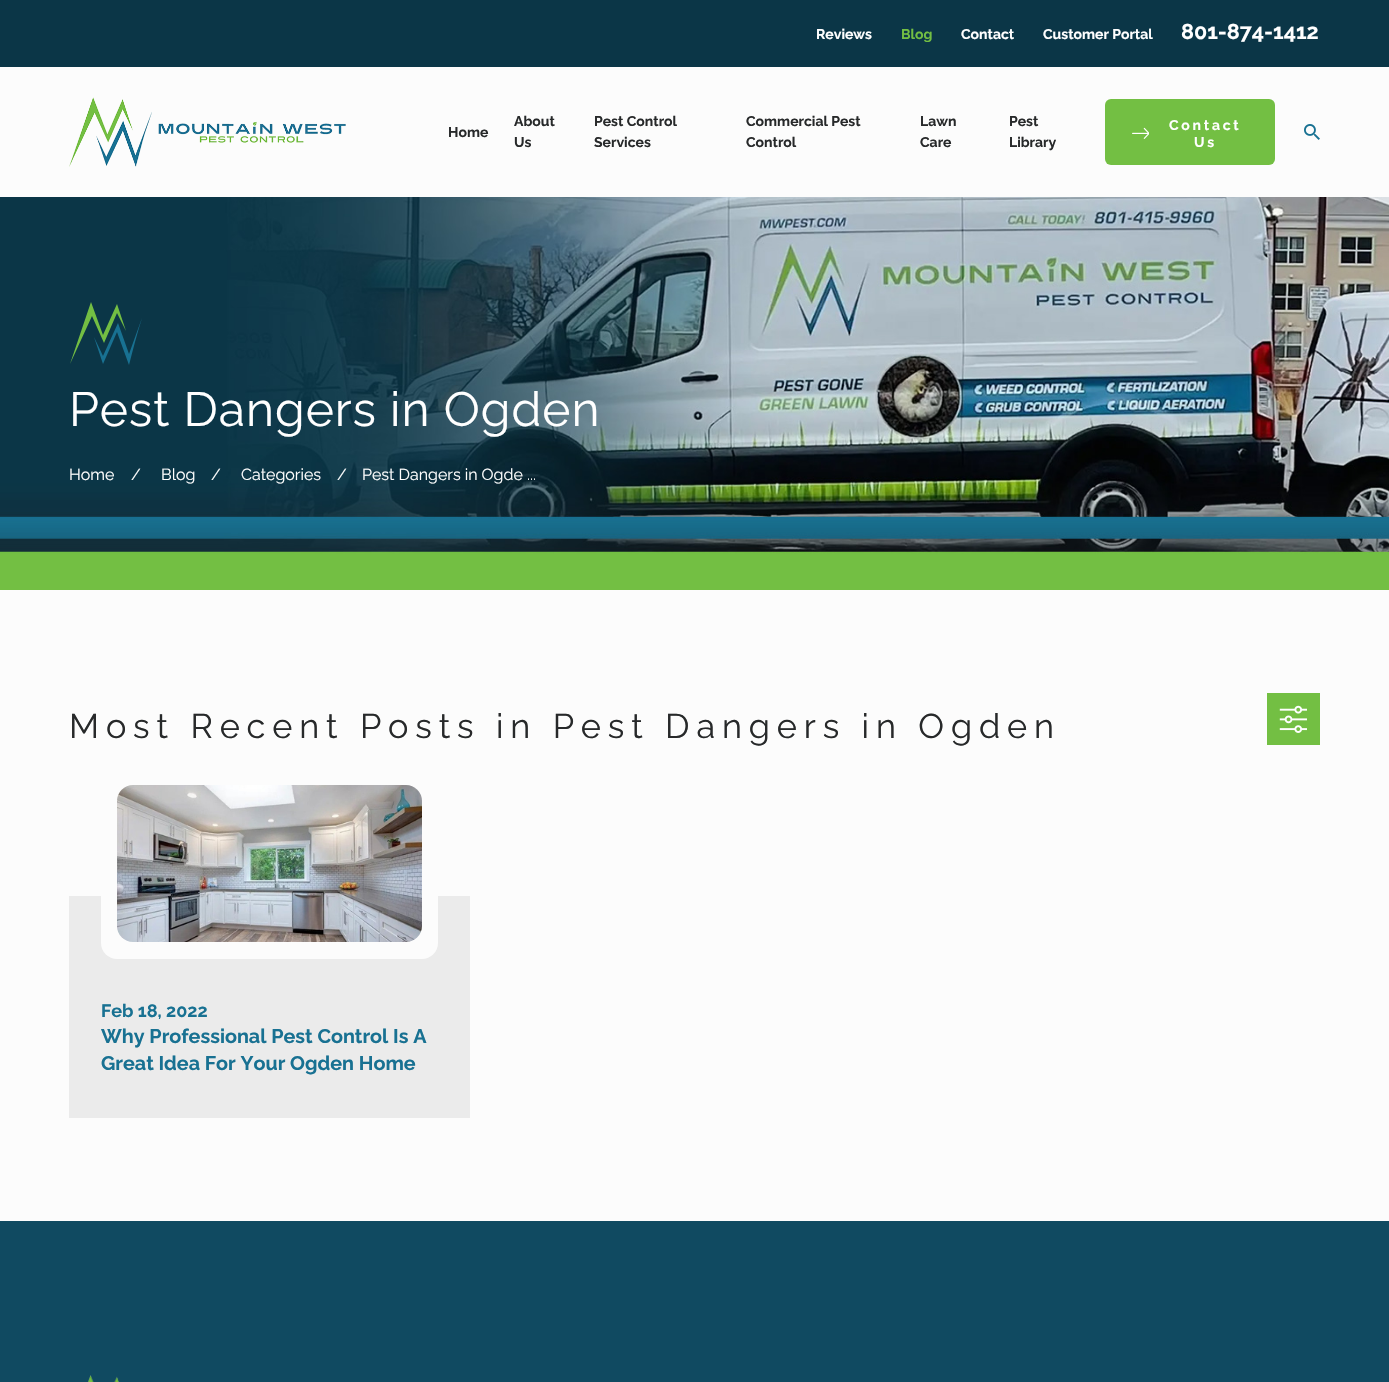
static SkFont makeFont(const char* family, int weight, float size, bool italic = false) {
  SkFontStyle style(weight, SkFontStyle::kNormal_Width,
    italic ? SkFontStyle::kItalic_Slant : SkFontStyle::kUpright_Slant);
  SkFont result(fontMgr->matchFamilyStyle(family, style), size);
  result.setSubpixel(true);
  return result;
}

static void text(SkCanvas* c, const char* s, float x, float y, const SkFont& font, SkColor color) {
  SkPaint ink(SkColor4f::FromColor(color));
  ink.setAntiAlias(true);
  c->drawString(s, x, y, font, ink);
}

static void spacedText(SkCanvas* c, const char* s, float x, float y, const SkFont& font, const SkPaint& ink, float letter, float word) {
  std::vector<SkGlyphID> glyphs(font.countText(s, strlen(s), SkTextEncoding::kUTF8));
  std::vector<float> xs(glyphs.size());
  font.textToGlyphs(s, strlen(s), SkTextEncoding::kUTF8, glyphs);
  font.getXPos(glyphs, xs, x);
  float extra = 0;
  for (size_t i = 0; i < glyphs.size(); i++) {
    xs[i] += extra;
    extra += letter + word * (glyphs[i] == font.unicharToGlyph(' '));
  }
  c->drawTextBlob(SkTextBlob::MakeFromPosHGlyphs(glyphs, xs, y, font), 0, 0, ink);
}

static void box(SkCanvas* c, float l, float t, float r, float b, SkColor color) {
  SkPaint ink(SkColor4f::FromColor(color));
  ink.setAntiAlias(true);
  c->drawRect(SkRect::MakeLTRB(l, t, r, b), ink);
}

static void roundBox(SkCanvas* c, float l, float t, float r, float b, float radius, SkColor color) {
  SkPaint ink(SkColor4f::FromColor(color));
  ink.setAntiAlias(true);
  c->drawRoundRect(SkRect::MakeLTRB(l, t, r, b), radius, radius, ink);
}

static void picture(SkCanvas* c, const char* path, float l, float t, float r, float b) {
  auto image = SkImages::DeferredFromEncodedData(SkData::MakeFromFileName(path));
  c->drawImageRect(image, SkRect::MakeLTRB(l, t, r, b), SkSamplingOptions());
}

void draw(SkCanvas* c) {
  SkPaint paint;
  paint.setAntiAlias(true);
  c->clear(0xfffcfcfc);
  box(c, 0, 0, 1389, 67, 0xff0b3647);
  SkFont face1 = makeFont("Raleway", 700, 14);
  text(c, "Reviews", 816, 39, face1, 0xffffffff);
  text(c, "Blog", 901, 39, face1, 0xff73bf43);
  text(c, "Contact", 961, 39, face1, 0xffffffff);
  text(c, "Customer Portal", 1043, 39, face1, 0xffffffff);
  SkFont face2 = makeFont("Raleway", 700, 21.5f);
  text(c, "801-874-1412", 1181, 39, face2, 0xffffffff);
  picture(c, "img_01.png", 69, 97, 346, 167);
  text(c, "Home", 448, 137, face1, 0xff27292a);
  text(c, "About", 514, 126, face1, 0xff27292a);
  text(c, "Us", 514, 147, face1, 0xff27292a);
  text(c, "Pest Control", 594, 126, face1, 0xff27292a);
  text(c, "Services", 594, 147, face1, 0xff27292a);
  text(c, "Commercial Pest", 746, 126, face1, 0xff27292a);
  text(c, "Control", 746, 147, face1, 0xff27292a);
  text(c, "Lawn", 920, 126, face1, 0xff27292a);
  text(c, "Care", 920, 147, face1, 0xff27292a);
  text(c, "Pest", 1009, 126, face1, 0xff27292a);
  text(c, "Library", 1009, 147, face1, 0xff27292a);
  roundBox(c, 1105, 99, 1275, 165, 6, 0xff73bf43);
  picture(c, "img_02.png", 1132, 127, 1149, 139);
  paint.setColor(0xffffffff);
  spacedText(c, "Contact", 1169, 130, face1, paint, 2.75f, 0);
  spacedText(c, "Us", 1194, 147, face1, paint, 2.75f, 0);
  picture(c, "img_03.png", 1304, 124, 1320, 140);
  picture(c, "img_04.png", 0, 197, 1389, 590);
  paint.setColor(0xff73be43);
  c->drawPath(SkPathBuilder().moveTo(126, 331).lineTo(117, 313).lineTo(104, 343).lineTo(92, 316).lineTo(70, 364).lineTo(91, 302).lineTo(103, 335).lineTo(117, 304).close().detach(), paint);
  paint.setColor(0xff187192);
  c->drawPath(SkPathBuilder().moveTo(142, 318).cubicTo(137, 334, 133, 349, 129, 365).lineTo(117, 332).lineTo(103, 364).lineTo(94, 337).lineTo(103, 356).lineTo(118, 323).lineTo(129, 354).close().detach(), paint);
  SkFont face3 = makeFont("Raleway", 400, 48);
  paint.setColor(0xffffffff);
  spacedText(c, "Pest Dangers in Ogden", 69, 426, face3, paint, 1, 0);
  SkFont face4 = makeFont("Raleway", 400, 16);
  text(c, "Home", 69, 480, face4, 0xffffffff);
  text(c, "/", 131, 480, face4, 0xffffffff);
  text(c, "Blog", 161, 480, face4, 0xffffffff);
  text(c, "/", 211, 480, face4, 0xffffffff);
  text(c, "Categories", 241, 480, face4, 0xffffffff);
  text(c, "/", 337, 480, face4, 0xffffffff);
  text(c, "Pest Dangers in Ogde ...", 362, 480, face4, 0xffffffff);
  SkFont face5 = makeFont("Raleway", 400, 34.25f);
  paint.setColor(0xff27292a);
  spacedText(c, "Most Recent Posts in Pest Dangers in Ogden", 69, 738, face5, paint, 6.85f, 0);
  box(c, 1267, 693, 1320, 745, 0xff73bf43);
  picture(c, "img_05.png", 1279, 705, 1307, 733);
  box(c, 69, 896, 470, 1118, 0xffebebeb);
  roundBox(c, 101, 769, 438, 959, 16, 0xfffcfcfc);
  picture(c, "img_06.png", 117, 785, 422, 942);
  SkFont face6 = makeFont("Raleway", 700, 18);
  text(c, "Feb 18, 2022", 101, 1017, face6, 0xff187192);
  SkFont face7 = makeFont("Raleway", 700, 19.75f);
  text(c, "Why Professional Pest Control Is A", 101, 1043, face7, 0xff187192);
  text(c, "Great Idea For Your Ogden Home", 101, 1070, face7, 0xff187192);
  box(c, 0, 1221, 1389, 1382, 0xff104a61);
  picture(c, "img_07.png", 88, 1375, 119, 1382);
}
